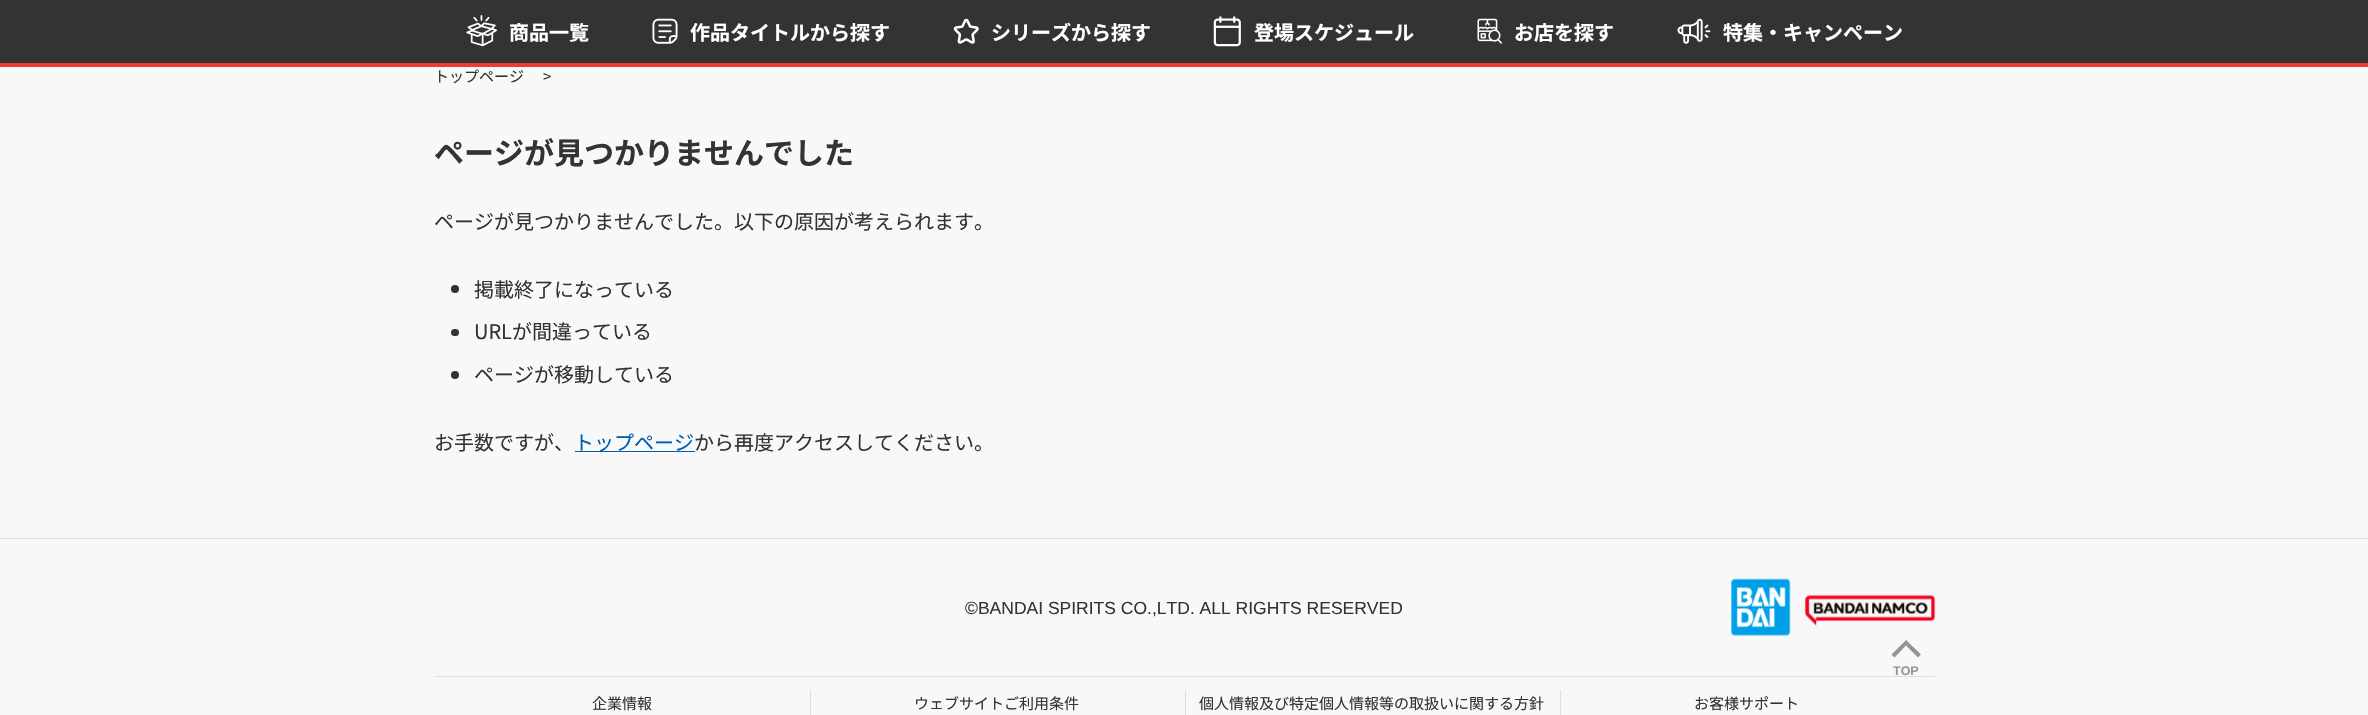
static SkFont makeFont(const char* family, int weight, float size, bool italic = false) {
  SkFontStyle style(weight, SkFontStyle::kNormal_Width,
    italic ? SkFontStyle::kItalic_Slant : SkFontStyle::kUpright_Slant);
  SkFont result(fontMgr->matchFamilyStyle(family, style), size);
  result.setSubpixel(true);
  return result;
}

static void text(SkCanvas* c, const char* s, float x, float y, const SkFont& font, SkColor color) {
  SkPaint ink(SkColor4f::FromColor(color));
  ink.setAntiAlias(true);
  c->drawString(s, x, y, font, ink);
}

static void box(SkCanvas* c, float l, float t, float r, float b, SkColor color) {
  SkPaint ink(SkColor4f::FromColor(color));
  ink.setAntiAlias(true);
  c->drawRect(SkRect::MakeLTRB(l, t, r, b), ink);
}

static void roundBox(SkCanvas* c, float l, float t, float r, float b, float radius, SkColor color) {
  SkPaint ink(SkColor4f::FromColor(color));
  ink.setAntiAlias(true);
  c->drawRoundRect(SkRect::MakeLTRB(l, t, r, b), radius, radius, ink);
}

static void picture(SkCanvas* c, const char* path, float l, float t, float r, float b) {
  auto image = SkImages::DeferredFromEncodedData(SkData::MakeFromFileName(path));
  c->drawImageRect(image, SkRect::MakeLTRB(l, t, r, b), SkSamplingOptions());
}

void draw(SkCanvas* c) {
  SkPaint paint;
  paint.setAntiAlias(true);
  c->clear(0xfff8f8f8);
  box(c, 0, 0, 2368, 63, 0xff333333);
  box(c, 0, 63, 2368, 67, 0xfff43838);
  picture(c, "img_01.png", 466, 15, 497, 47);
  SkFont face1 = makeFont("Noto Sans JP", 700, 20);
  text(c, "商品一覧", 509, 40, face1, 0xffffffff);
  picture(c, "img_02.png", 652, 18, 678, 44);
  text(c, "作品タイトルから探す", 690, 40, face1, 0xffffffff);
  picture(c, "img_03.png", 953, 18, 979, 44);
  text(c, "シリーズから探す", 991, 40, face1, 0xffffffff);
  picture(c, "img_04.png", 1213, 16, 1241, 47);
  text(c, "登場スケジュール", 1254, 40, face1, 0xffffffff);
  picture(c, "img_05.png", 1477, 18, 1502, 44);
  text(c, "お店を探す", 1514, 40, face1, 0xffffffff);
  picture(c, "img_06.png", 1677, 18, 1711, 44);
  text(c, "特集・キャンペーン", 1723, 40, face1, 0xffffffff);
  SkFont face2 = makeFont("Noto Sans JP", 400, 15);
  text(c, "トップページ", 434, 82, face2, 0xff333333);
  text(c, ">", 543, 82, face2, 0xff333333);
  SkFont face3 = makeFont("Noto Sans JP", 700, 30);
  text(c, "ページが見つかりませんでした", 434, 164, face3, 0xff333333);
  SkFont face4 = makeFont("Noto Sans JP", 400, 20);
  text(c, "ページが見つかりませんでした。以下の原因が考えられます。", 434, 229, face4, 0xff333333);
  paint.setColor(0xff333333);
  c->drawCircle(455, 289, 4, paint);
  text(c, "掲載終了になっている", 474, 297, face4, 0xff333333);
  roundBox(c, 451, 329, 459, 336, 3.5f, 0xff333333);
  text(c, "URLが間違っている", 474, 339, face4, 0xff333333);
  c->drawCircle(455, 375, 4, paint);
  text(c, "ページが移動している", 474, 382, face4, 0xff333333);
  text(c, "お手数ですが、", 434, 450, face4, 0xff333333);
  box(c, 575, 451, 695, 452, 0xff005cac);
  text(c, "トップページ", 574, 450, face4, 0xff005cac);
  text(c, "から再度アクセスしてください。", 694, 450, face4, 0xff333333);
  box(c, 0, 538, 2368, 539, 0xffdddddd);
  SkFont face5 = makeFont("Liberation Sans", 400, 17.5f);
  text(c, "©BANDAI SPIRITS CO.,LTD. ALL RIGHTS RESERVED", 965, 614, face5, 0xff333333);
  picture(c, "img_07.png", 1731, 578, 1791, 636);
  picture(c, "img_08.png", 1804, 594, 1936, 626);
  paint.setColor(0xff959595);
  c->drawPath(SkPathBuilder().moveTo(1906, 640).lineTo(1891.5f, 654.5f).lineTo(1894.5f, 657.5f).lineTo(1906, 645.5f).lineTo(1918, 657.5f).lineTo(1921, 654.5f).close().detach(), paint);
  SkFont face6 = makeFont("Liberation Sans", 700, 12.5f);
  text(c, "TOP", 1893, 675, face6, 0xff959595);
  box(c, 435, 676, 1935, 677, 0xffdddddd);
  text(c, "企業情報", 592, 709, face2, 0xff333333);
  box(c, 810, 690, 811, 715, 0xffdddddd);
  text(c, "ウェブサイトご利用条件", 914, 709, face2, 0xff333333);
  box(c, 1185, 690, 1186, 715, 0xffdddddd);
  text(c, "個人情報及び特定個人情報等の取扱いに関する方針", 1199, 709, face2, 0xff333333);
  box(c, 1560, 690, 1561, 715, 0xffdddddd);
  text(c, "お客様サポート", 1694, 709, face2, 0xff333333);
}
